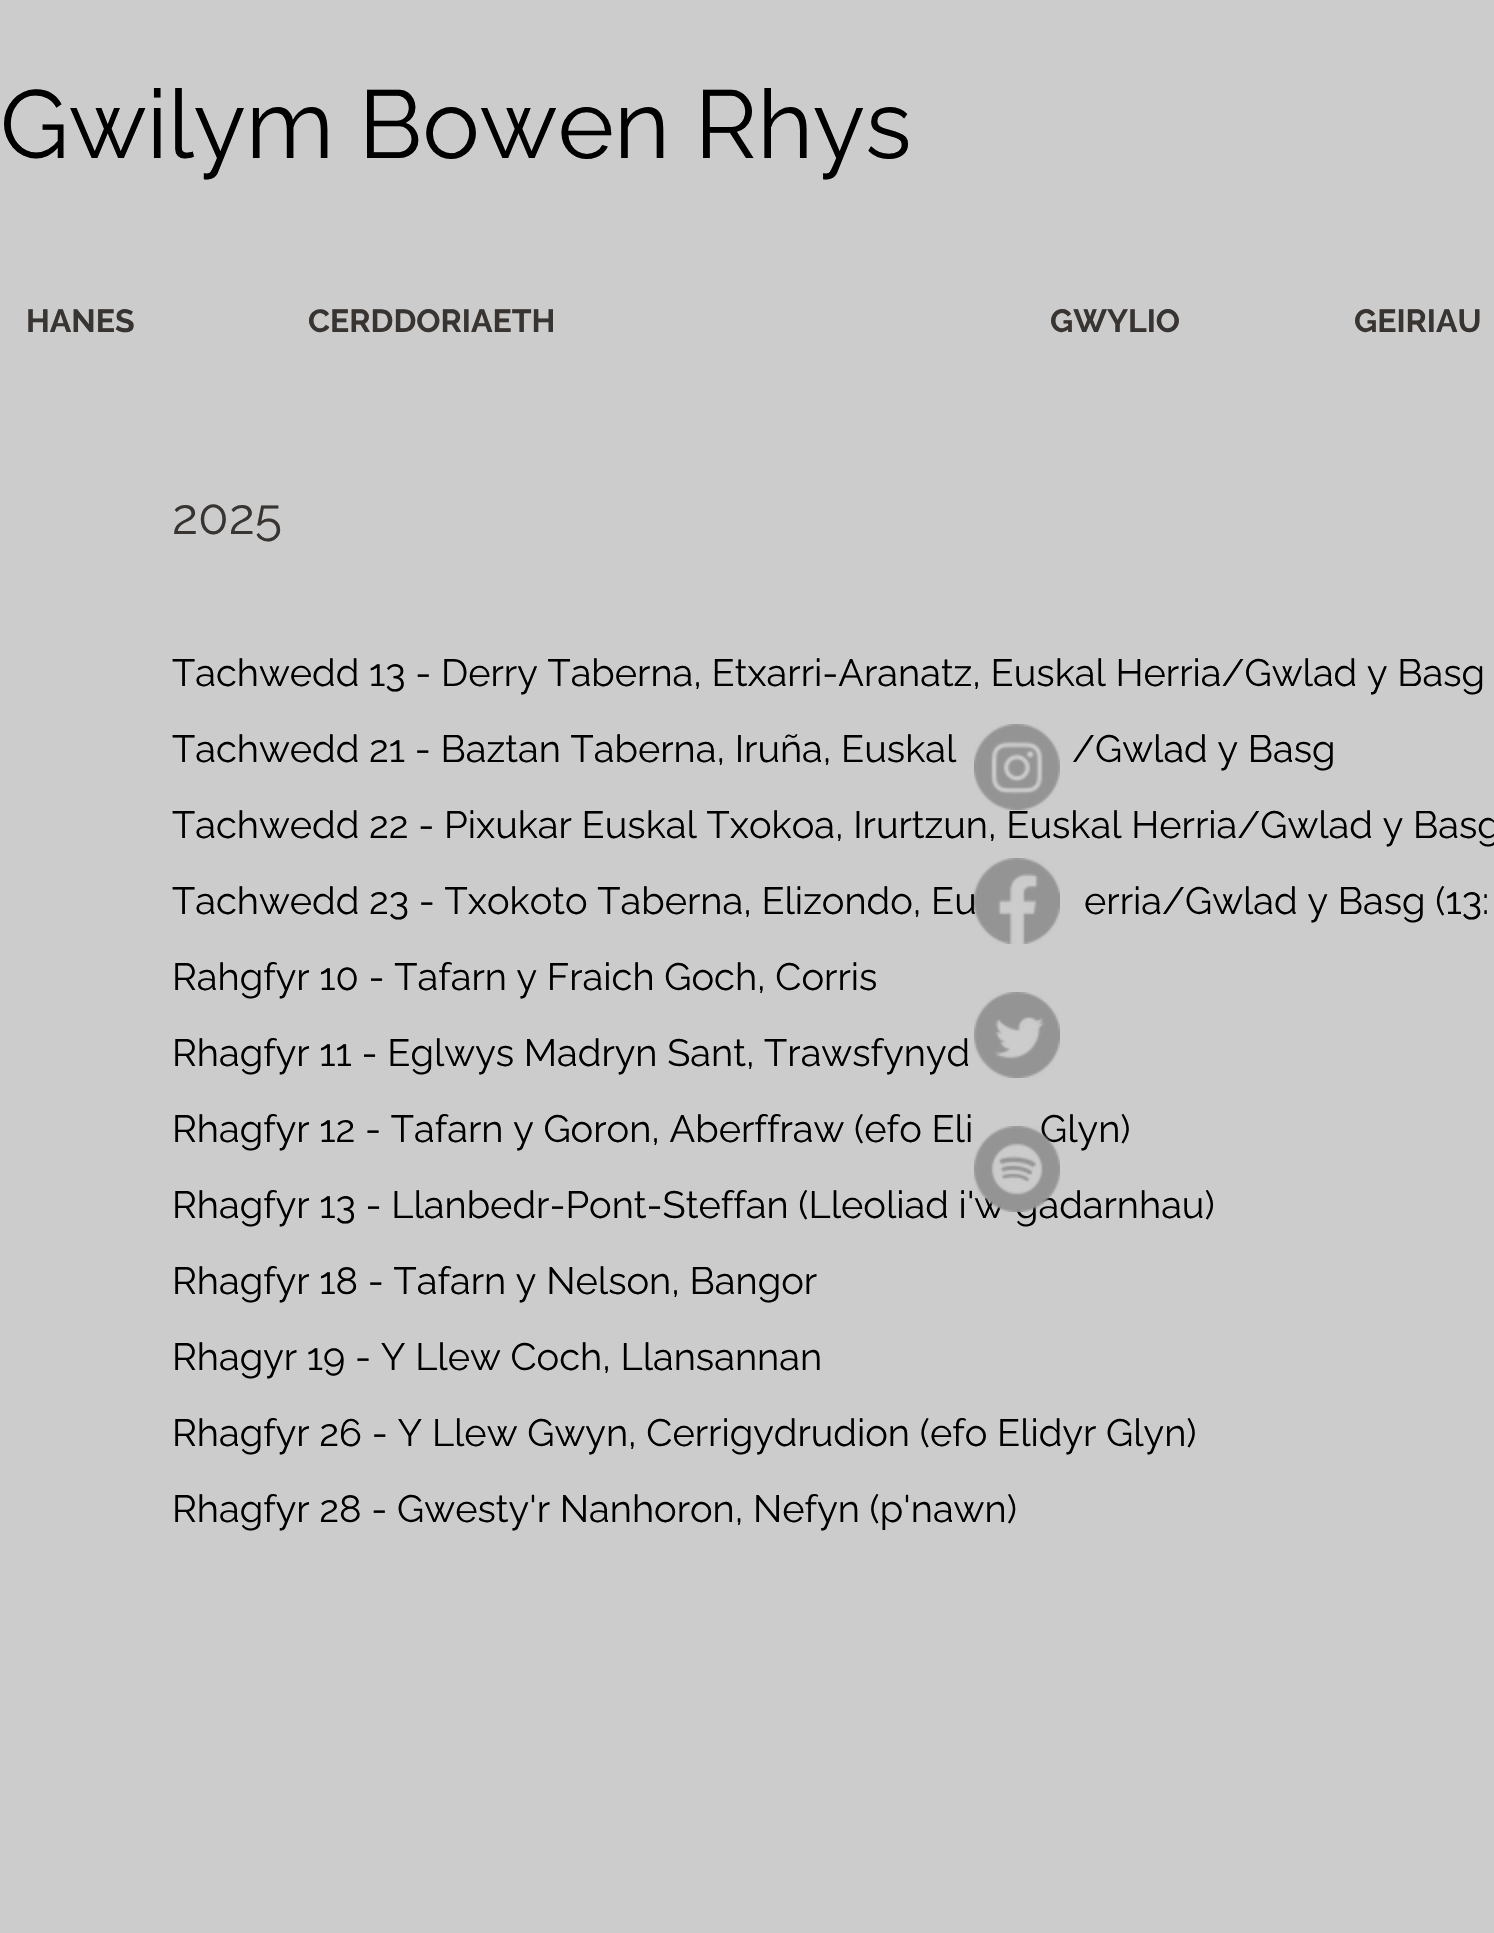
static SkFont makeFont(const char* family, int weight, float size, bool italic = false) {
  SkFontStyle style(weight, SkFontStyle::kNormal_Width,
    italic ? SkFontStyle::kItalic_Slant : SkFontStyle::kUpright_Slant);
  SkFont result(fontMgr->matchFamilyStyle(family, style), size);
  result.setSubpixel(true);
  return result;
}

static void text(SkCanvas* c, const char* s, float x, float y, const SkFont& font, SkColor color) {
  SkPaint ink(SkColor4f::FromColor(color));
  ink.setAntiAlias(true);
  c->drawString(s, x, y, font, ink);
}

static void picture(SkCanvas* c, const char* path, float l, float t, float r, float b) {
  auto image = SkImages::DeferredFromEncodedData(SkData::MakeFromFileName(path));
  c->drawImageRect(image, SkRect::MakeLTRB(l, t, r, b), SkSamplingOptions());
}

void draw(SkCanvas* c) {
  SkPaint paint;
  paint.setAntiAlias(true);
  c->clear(0xffcccccc);
  SkFont face1 = makeFont("Raleway", 400, 96);
  text(c, "Gwilym Bowen Rhys", 0, 158, face1, 0xff000000);
  SkFont face2 = makeFont("Raleway", 700, 32);
  text(c, "HANES", 26, 332, face2, 0xff383432);
  text(c, "CERDDORIAETH", 308, 332, face2, 0xff383432);
  text(c, "GWYLIO", 1050, 332, face2, 0xff383432);
  text(c, "GEIRIAU", 1354, 332, face2, 0xff383432);
  SkFont face3 = makeFont("Raleway", 400, 50);
  text(c, "2025", 172, 534, face3, 0xff383432);
  SkFont face4 = makeFont("Raleway", 400, 38);
  text(c, "Tachwedd 13 - Derry Taberna, Etxarri-Aranatz, Euskal Herria/Gwlad y Basg", 172, 686, face4, 0xff000000);
  text(c, "Tachwedd 21 - Baztan Taberna, Iruña, Euskal", 172, 762, face4, 0xff000000);
  text(c, "/Gwlad y Basg", 1072, 762, face4, 0xff000000);
  text(c, "Tachwedd 22 - Pixukar Euskal Txokoa, Irurtzun, Euskal Herria/Gwlad y Basg", 172, 838, face4, 0xff000000);
  text(c, "Tachwedd 23 - Txokoto Taberna, Elizondo, Eu", 172, 914, face4, 0xff000000);
  text(c, "erria/Gwlad y Basg (13:", 1084, 914, face4, 0xff000000);
  text(c, "Rahgfyr 10 - Tafarn y Fraich Goch, Corris", 172, 990, face4, 0xff000000);
  text(c, "Rhagfyr 11 - Eglwys Madryn Sant, Trawsfynyd", 172, 1066, face4, 0xff000000);
  text(c, "Rhagfyr 12 - Tafarn y Goron, Aberffraw (efo Eli", 172, 1142, face4, 0xff000000);
  text(c, "Glyn)", 1040, 1142, face4, 0xff000000);
  text(c, "Rhagfyr 13 - Llanbedr-Pont-Steffan (Lleoliad i'w gadarnhau)", 172, 1218, face4, 0xff000000);
  text(c, "Rhagfyr 18 - Tafarn y Nelson, Bangor", 172, 1294, face4, 0xff000000);
  text(c, "Rhagyr 19 - Y Llew Coch, Llansannan", 172, 1370, face4, 0xff000000);
  text(c, "Rhagfyr 26 - Y Llew Gwyn, Cerrigydrudion (efo Elidyr Glyn)", 172, 1446, face4, 0xff000000);
  text(c, "Rhagfyr 28 - Gwesty'r Nanhoron, Nefyn (p'nawn)", 172, 1522, face4, 0xff000000);
  picture(c, "img_01.png", 974, 724, 1060, 810);
  picture(c, "img_02.png", 974, 858, 1060, 944);
  picture(c, "img_03.png", 974, 992, 1060, 1078);
  picture(c, "img_04.png", 974, 1126, 1060, 1212);
}
